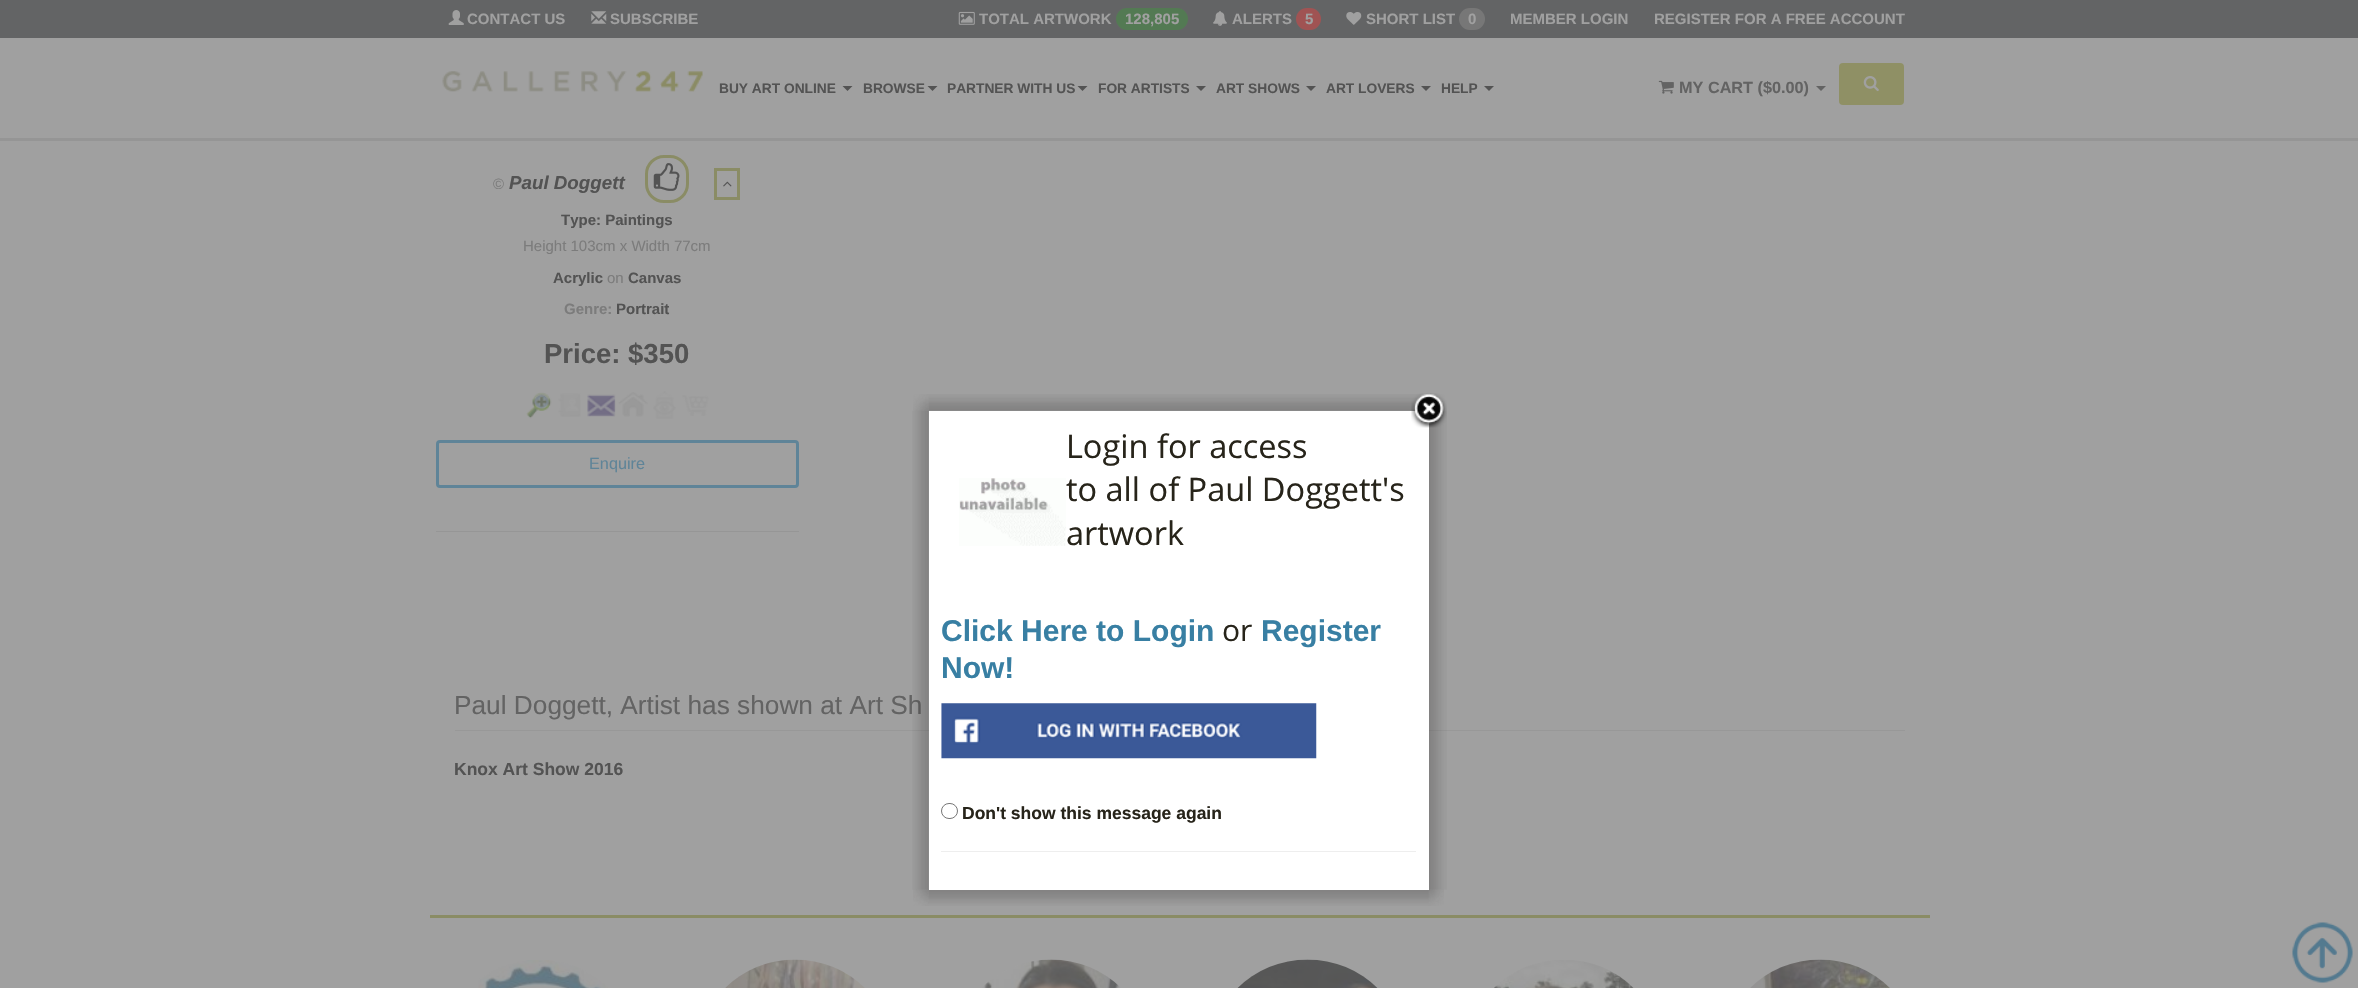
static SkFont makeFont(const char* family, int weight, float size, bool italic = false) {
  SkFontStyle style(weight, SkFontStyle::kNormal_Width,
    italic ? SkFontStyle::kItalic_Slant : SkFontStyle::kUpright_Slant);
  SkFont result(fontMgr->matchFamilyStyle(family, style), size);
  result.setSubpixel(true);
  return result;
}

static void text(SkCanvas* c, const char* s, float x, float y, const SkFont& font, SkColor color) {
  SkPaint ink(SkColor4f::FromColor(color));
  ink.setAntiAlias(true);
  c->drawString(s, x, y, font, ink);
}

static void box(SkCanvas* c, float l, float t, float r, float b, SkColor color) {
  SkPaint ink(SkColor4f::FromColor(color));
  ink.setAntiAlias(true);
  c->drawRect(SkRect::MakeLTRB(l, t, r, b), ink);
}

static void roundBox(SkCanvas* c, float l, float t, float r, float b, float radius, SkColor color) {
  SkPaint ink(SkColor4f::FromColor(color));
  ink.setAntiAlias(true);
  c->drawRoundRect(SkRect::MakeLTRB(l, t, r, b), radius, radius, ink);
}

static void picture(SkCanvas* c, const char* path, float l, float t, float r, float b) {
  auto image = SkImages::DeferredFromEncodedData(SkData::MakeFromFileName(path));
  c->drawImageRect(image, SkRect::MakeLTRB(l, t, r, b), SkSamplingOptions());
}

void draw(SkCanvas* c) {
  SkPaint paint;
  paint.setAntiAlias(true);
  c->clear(0xffa0a0a0);
  box(c, 0, 138, 2358, 141, 0xff959595);
  box(c, 0, 0, 2358, 38, 0xff636465);
  picture(c, "img_01.png", 448, 10, 464, 25);
  SkFont face1 = makeFont("Liberation Sans", 700, 15);
  text(c, "CONTACT US", 467, 24, face1, 0xffa0a0a0);
  picture(c, "img_02.png", 591, 11, 607, 24);
  text(c, "SUBSCRIBE", 610, 24, face1, 0xffa0a0a0);
  picture(c, "img_03.png", 958, 11, 975, 25);
  text(c, "TOTAL ARTWORK", 979, 24, face1, 0xffa0a0a0);
  roundBox(c, 1116, 8, 1188, 30, 11, 0xff537a53);
  text(c, "128,805", 1125, 24, face1, 0xffa0a0a0);
  picture(c, "img_04.png", 1213, 11, 1227, 26);
  text(c, "ALERTS", 1232, 24, face1, 0xffa0a0a0);
  roundBox(c, 1296, 8, 1321, 30, 11, 0xffa05353);
  text(c, "5", 1305, 24, face1, 0xffa0a0a0);
  picture(c, "img_05.png", 1346, 12, 1362, 25);
  text(c, "SHORT LIST", 1366, 24, face1, 0xffa0a0a0);
  roundBox(c, 1459, 8, 1485, 30, 11, 0xff777777);
  text(c, "0", 1468, 24, face1, 0xffa0a0a0);
  text(c, "MEMBER LOGIN", 1510, 24, face1, 0xffa0a0a0);
  text(c, "REGISTER FOR A FREE ACCOUNT", 1654, 24, face1, 0xffa0a0a0);
  picture(c, "img_06.png", 442, 71, 703, 92);
  SkFont face2 = makeFont("Liberation Sans", 700, 13.75f);
  text(c, "BUY ART ONLINE", 719, 93, face2, 0xff535353);
  paint.setColor(0xff535353);
  c->drawPath(SkPathBuilder().moveTo(842.5f, 86).lineTo(852.5f, 86).lineTo(847.5f, 91).close().detach(), paint);
  text(c, "BROWSE", 863, 93, face2, 0xff535353);
  c->drawPath(SkPathBuilder().moveTo(927.5f, 86).lineTo(937.5f, 86).lineTo(932.5f, 91).close().detach(), paint);
  text(c, "PARTNER WITH US", 947, 93, face2, 0xff535353);
  c->drawPath(SkPathBuilder().moveTo(1077.5f, 86).lineTo(1087.5f, 86).lineTo(1082.5f, 91).close().detach(), paint);
  text(c, "FOR ARTISTS", 1098, 93, face2, 0xff535353);
  c->drawPath(SkPathBuilder().moveTo(1196, 86).lineTo(1206, 86).lineTo(1201, 91).close().detach(), paint);
  text(c, "ART SHOWS", 1216, 93, face2, 0xff535353);
  c->drawPath(SkPathBuilder().moveTo(1306, 86).lineTo(1316, 86).lineTo(1311, 91).close().detach(), paint);
  text(c, "ART LOVERS", 1326, 93, face2, 0xff535353);
  c->drawPath(SkPathBuilder().moveTo(1421, 86).lineTo(1431, 86).lineTo(1426, 91).close().detach(), paint);
  text(c, "HELP", 1441, 93, face2, 0xff535353);
  c->drawPath(SkPathBuilder().moveTo(1484, 86).lineTo(1494, 86).lineTo(1489, 91).close().detach(), paint);
  picture(c, "img_07.png", 1658, 80, 1674, 94);
  SkFont face3 = makeFont("Liberation Sans", 700, 16.25f);
  text(c, "MY CART ($0.00)", 1679, 93, face3, 0xff636363);
  paint.setColor(0xff636363);
  c->drawPath(SkPathBuilder().moveTo(1816, 86).lineTo(1826, 86).lineTo(1821, 91).close().detach(), paint);
  roundBox(c, 1839, 63, 1904, 105, 4, 0xff8f9065);
  picture(c, "img_08.png", 1863, 76, 1879, 92);
  box(c, 436, 531, 799, 532, 0xff969696);
  SkFont face4 = makeFont("Liberation Sans", 400, 15);
  text(c, "©", 493, 189, face4, 0xff7c7c7c);
  SkFont face5 = makeFont("Liberation Sans", 700, 18.75f, true);
  text(c, "Paul Doggett", 509, 189, face5, 0xff535353);
  paint.setStyle(SkPaint::kStroke_Style);
  paint.setStrokeWidth(3);
  paint.setColor(0xff8a8c65);
  c->drawRoundRect(SkRect::MakeLTRB(646.5f, 156.5f, 687.5f, 201.5f), 17.5f, 17.5f, paint);
  picture(c, "img_09.png", 653, 163, 680, 191);
  c->drawRect(SkRect::MakeLTRB(715.5f, 169.5f, 738.5f, 198.5f), paint);
  picture(c, "img_10.png", 723, 181, 732, 187);
  text(c, "Type: Paintings", 561, 225, face1, 0xff535353);
  text(c, "Height 103cm x Width 77cm", 523, 251, face4, 0xff7c7c7c);
  text(c, "Acrylic", 553, 283, face1, 0xff535353);
  text(c, "on", 607, 283, face4, 0xff7c7c7c);
  text(c, "Canvas", 628, 283, face1, 0xff535353);
  text(c, "Genre:", 564, 314, face1, 0xff7c7c7c);
  text(c, "Portrait", 616, 314, face1, 0xff535353);
  SkFont face6 = makeFont("Liberation Sans", 700, 27.5f);
  text(c, "Price: $350", 544, 363, face6, 0xff535353);
  picture(c, "img_11.png", 526, 392, 552, 419);
  picture(c, "img_12.png", 558, 393, 581, 417);
  picture(c, "img_13.png", 587, 394, 616, 417);
  picture(c, "img_14.png", 618, 392, 648, 417);
  picture(c, "img_15.png", 653, 391, 676, 419);
  picture(c, "img_16.png", 682, 395, 709, 416);
  paint.setColor(0xff5f8498);
  c->drawRoundRect(SkRect::MakeLTRB(437.5f, 441.5f, 797.5f, 486.5f), 2.5f, 2.5f, paint);
  SkFont face7 = makeFont("Liberation Sans", 400, 16.25f);
  text(c, "Enquire", 589, 469, face7, 0xff5f8498);
  box(c, 455, 730, 1905, 731, 0xff989898);
  SkFont face8 = makeFont("Liberation Sans", 400, 26.25f);
  text(c, "Paul Doggett, Artist has shown at Art Sh", 454, 714, face8, 0xff636363);
  SkFont face9 = makeFont("Liberation Sans", 700, 17.5f);
  text(c, "Knox Art Show 2016", 454, 775, face9, 0xff535353);
  box(c, 942, 424, 1416, 877, 0xffffffff);
  picture(c, "img_19.png", 928, 394, 1429, 411);
  picture(c, "img_20.png", 1428, 394, 1445, 411);
  picture(c, "img_24.png", 1429, 410, 1447, 890);
  picture(c, "img_27.png", 1428, 889, 1444, 906);
  picture(c, "img_26.png", 928, 889, 1429, 906);
  picture(c, "img_25.png", 913, 889, 929, 906);
  picture(c, "img_21.png", 912, 410, 929, 890);
  picture(c, "img_17.png", 913, 394, 929, 411);
  paint.setStrokeWidth(13);
  paint.setColor(0xffffffff);
  c->drawRect(SkRect::MakeLTRB(935.5f, 417.5f, 1422.5f, 883.5f), paint);
  picture(c, "img_18.png", 1411, 393, 1447, 428);
  picture(c, "img_22.png", 959, 478, 1066, 546);
  SkFont face10 = makeFont("Open Sans", 400, 32.5f);
  text(c, "Login for access", 1066, 458, face10, 0xff27241a);
  text(c, "to all of Paul Doggett's", 1066, 501, face10, 0xff27241a);
  text(c, "artwork", 1066, 545, face10, 0xff27241a);
  SkFont face11 = makeFont("Liberation Sans", 700, 30);
  text(c, "Click Here to Login", 941, 641, face11, 0xff387fa3);
  SkFont face12 = makeFont("Open Sans", 400, 30);
  text(c, "or", 1222, 641, face12, 0xff27241a);
  text(c, "Register", 1261, 641, face11, 0xff387fa3);
  text(c, "Now!", 941, 678, face11, 0xff387fa3);
  picture(c, "img_23.png", 941, 703, 1317, 759);
  paint.setStrokeWidth(1);
  paint.setColor(0xff767676);
  c->drawRoundRect(SkRect::MakeLTRB(941.5f, 803.5f, 957.5f, 818.5f), 7.5f, 7.5f, paint);
  text(c, "Don't show this message again", 962, 819, face9, 0xff27241a);
  box(c, 941, 851, 1416, 852, 0xffeeeeee);
  box(c, 430, 915, 1930, 918, 0xff8a8c65);
  picture(c, "img_28.png", 478, 960, 608, 988);
  picture(c, "img_29.png", 725, 959, 865, 988);
  picture(c, "img_30.png", 982, 959, 1121, 988);
  picture(c, "img_31.png", 1237, 959, 1378, 988);
  picture(c, "img_32.png", 1494, 960, 1634, 988);
  picture(c, "img_33.png", 1750, 959, 1890, 988);
  picture(c, "img_34.png", 2292, 922, 2353, 983);
}
